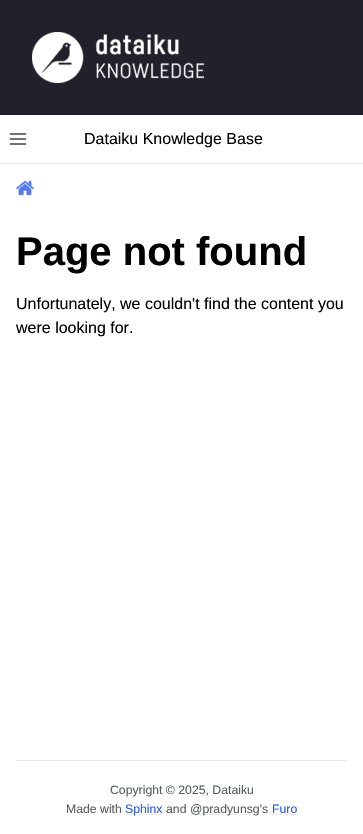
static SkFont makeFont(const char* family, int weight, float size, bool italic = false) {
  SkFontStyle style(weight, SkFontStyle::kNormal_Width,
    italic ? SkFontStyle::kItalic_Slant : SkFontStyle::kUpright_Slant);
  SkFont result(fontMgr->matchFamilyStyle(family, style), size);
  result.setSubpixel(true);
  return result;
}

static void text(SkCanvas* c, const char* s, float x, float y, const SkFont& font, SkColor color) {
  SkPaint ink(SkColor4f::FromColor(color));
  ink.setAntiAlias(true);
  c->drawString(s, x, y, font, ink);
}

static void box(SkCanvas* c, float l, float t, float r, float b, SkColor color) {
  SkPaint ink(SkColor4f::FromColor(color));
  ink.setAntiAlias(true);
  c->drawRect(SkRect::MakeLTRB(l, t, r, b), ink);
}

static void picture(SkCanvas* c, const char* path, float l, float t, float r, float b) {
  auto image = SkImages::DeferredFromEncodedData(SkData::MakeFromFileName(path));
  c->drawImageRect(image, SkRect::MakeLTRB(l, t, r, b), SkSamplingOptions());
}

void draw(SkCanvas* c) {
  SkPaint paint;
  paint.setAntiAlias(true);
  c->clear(0xffffffff);
  box(c, 0, 0, 363, 115, 0xff21202b);
  picture(c, "img_01.png", 32, 32, 204, 83);
  box(c, 0, 163, 363, 164, 0xffeeebee);
  picture(c, "img_02.png", 9, 133, 27, 145);
  SkFont face1 = makeFont("Liberation Sans", 400, 16);
  text(c, "Dataiku Knowledge Base", 84, 144, face1, 0xff000000);
  picture(c, "img_03.png", 16, 180, 34, 196);
  SkFont face2 = makeFont("Liberation Sans", 700, 40);
  text(c, "Page not found", 16, 265, face2, 0xff000000);
  text(c, "Unfortunately, we couldn't find the content you", 16, 309, face1, 0xff000000);
  text(c, "were looking for.", 16, 333, face1, 0xff000000);
  box(c, 16, 760, 347, 761, 0xffeeebee);
  SkFont face3 = makeFont("Liberation Sans", 400, 12.25f);
  text(c, "Copyright © 2025, Dataiku", 110, 794, face3, 0xff5a5c63);
  text(c, "Made with", 66, 813, face3, 0xff5a5c63);
  box(c, 125, 814, 163, 815, 0xffeeebee);
  text(c, "Sphinx", 125, 813, face3, 0xff2a5adf);
  text(c, "and", 166, 813, face3, 0xff5a5c63);
  box(c, 190, 814, 260, 815, 0xffeeebee);
  text(c, "@pradyunsg's", 190, 813, face3, 0xff5a5c63);
  text(c, "Furo", 272, 813, face3, 0xff2a5adf);
  box(c, 272, 814, 297, 815, 0xffeeebee);
}
